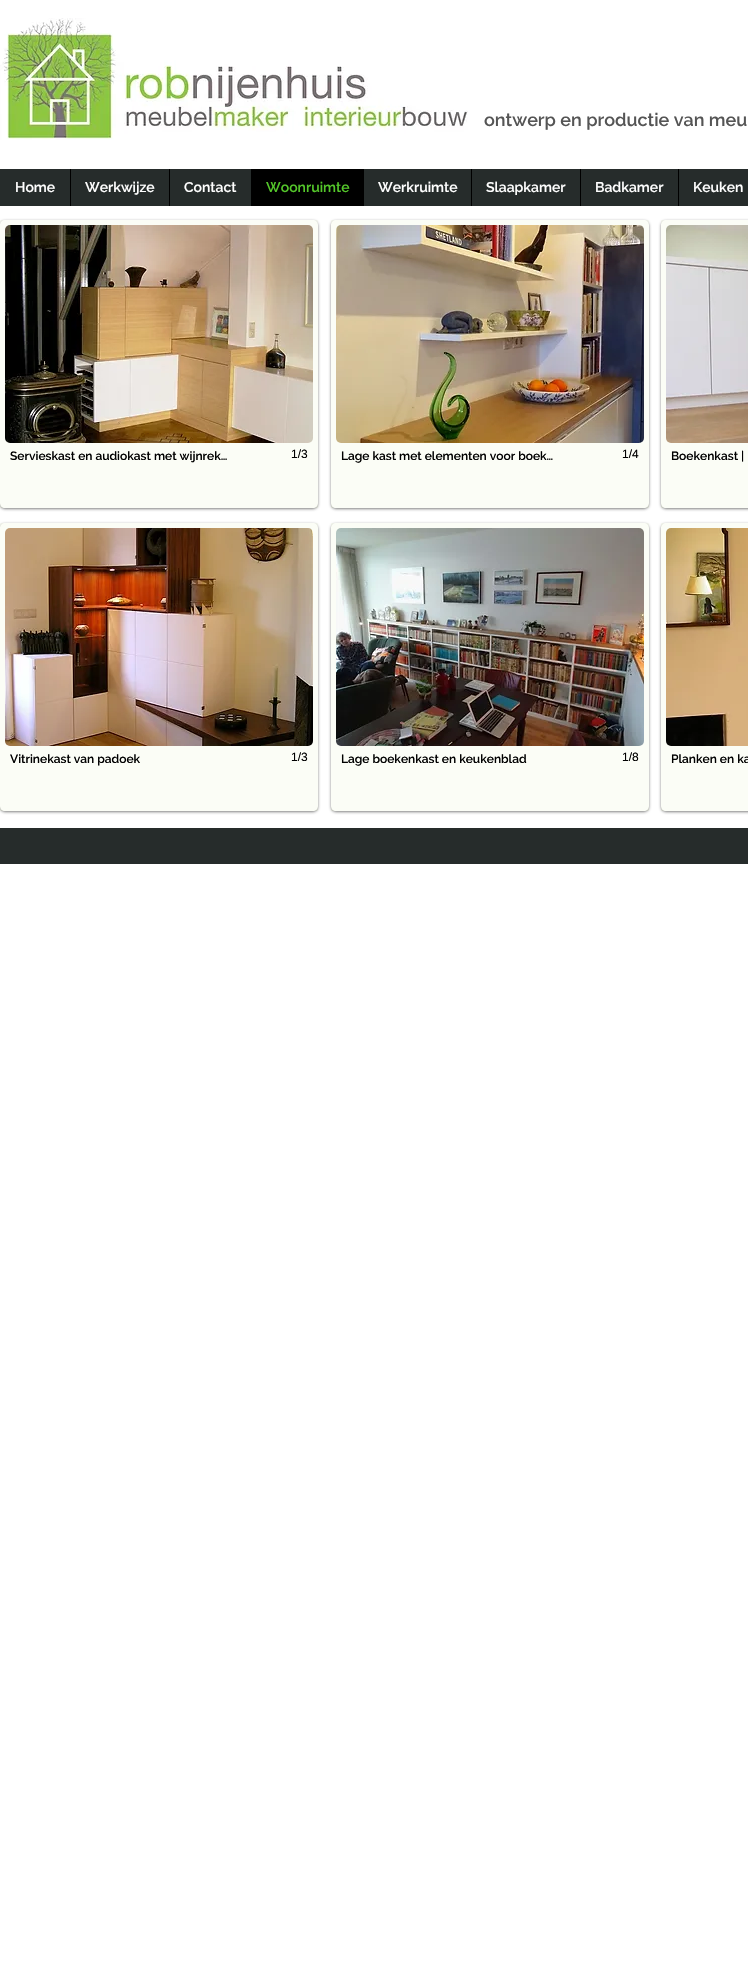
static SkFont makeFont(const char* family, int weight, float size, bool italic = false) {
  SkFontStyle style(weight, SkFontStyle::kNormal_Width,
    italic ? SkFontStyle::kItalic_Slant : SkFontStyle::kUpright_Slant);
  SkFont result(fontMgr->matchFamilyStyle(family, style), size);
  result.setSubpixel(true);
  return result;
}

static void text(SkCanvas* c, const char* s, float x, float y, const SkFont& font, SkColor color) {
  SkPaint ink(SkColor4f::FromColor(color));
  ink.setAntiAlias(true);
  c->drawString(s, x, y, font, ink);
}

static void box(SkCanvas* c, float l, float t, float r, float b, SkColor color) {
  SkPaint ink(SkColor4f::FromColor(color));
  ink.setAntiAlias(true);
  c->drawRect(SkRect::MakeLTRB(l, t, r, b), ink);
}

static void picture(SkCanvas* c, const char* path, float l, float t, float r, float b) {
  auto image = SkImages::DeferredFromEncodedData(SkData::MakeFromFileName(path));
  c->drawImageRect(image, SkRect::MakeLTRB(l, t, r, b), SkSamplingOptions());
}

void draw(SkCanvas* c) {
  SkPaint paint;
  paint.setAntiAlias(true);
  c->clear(0xffffffff);
  picture(c, "img_01.png", 0, 18, 468, 140);
  SkFont face1 = makeFont("Raleway", 600, 18);
  text(c, "ontwerp en productie van meu", 484, 126, face1, 0xff555555);
  box(c, 0, 169, 748, 206, 0xff262c2b);
  SkFont face2 = makeFont("Raleway", 600, 14);
  text(c, "Home", 15, 192, face2, 0xffffffff);
  box(c, 70, 169, 71, 206, 0xff000000);
  text(c, "Werkwijze", 85, 192, face2, 0xffffffff);
  box(c, 169, 169, 170, 206, 0xff000000);
  text(c, "Contact", 184, 192, face2, 0xffffffff);
  box(c, 251, 169, 364, 206, 0xff000000);
  text(c, "Woonruimte", 266, 192, face2, 0xff54c72a);
  text(c, "Werkruimte", 378, 192, face2, 0xffffffff);
  box(c, 471, 169, 472, 206, 0xff000000);
  text(c, "Slaapkamer", 486, 192, face2, 0xffffffff);
  box(c, 580, 169, 581, 206, 0xff000000);
  text(c, "Badkamer", 595, 192, face2, 0xffffffff);
  box(c, 678, 169, 679, 206, 0xff000000);
  text(c, "Keuken", 693, 192, face2, 0xffffffff);
  c->save();
  c->clipPath(SkPathBuilder(SkPathFillType::kEvenOdd).moveTo(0, 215).lineTo(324, 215).lineTo(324, 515).lineTo(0, 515).close().moveTo(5, 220).lineTo(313, 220).cubicTo(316, 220, 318, 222, 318, 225).lineTo(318, 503).cubicTo(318, 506, 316, 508, 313, 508).lineTo(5, 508).cubicTo(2, 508, 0, 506, 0, 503).lineTo(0, 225).cubicTo(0, 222, 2, 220, 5, 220).close().detach(), true);
  paint.setColor(0x80000000);
  paint.setMaskFilter(SkMaskFilter::MakeBlur(kNormal_SkBlurStyle, 1.5f));
  c->drawRoundRect(SkRect::MakeLTRB(0, 221, 318, 509), 5, 5, paint);
  paint.setMaskFilter(nullptr);
  c->restore();
  box(c, 0, 220, 318, 508, 0x0dbada55);
  picture(c, "img_02.png", 5, 225, 313, 443);
  SkFont face3 = makeFont("Raleway", 600, 12);
  text(c, "Servieskast en audiokast met wijnrek…", 10, 460, face3, 0xff000000);
  SkFont face4 = makeFont("Liberation Sans", 400, 12);
  text(c, "1/3", 291, 458, face4, 0xff000000);
  c->save();
  c->clipPath(SkPathBuilder(SkPathFillType::kEvenOdd).moveTo(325, 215).lineTo(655, 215).lineTo(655, 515).lineTo(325, 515).close().moveTo(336, 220).lineTo(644, 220).cubicTo(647, 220, 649, 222, 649, 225).lineTo(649, 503).cubicTo(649, 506, 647, 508, 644, 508).lineTo(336, 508).cubicTo(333, 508, 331, 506, 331, 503).lineTo(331, 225).cubicTo(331, 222, 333, 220, 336, 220).close().detach(), true);
  paint.setMaskFilter(SkMaskFilter::MakeBlur(kNormal_SkBlurStyle, 1.5f));
  c->drawRoundRect(SkRect::MakeLTRB(331, 221, 649, 509), 5, 5, paint);
  paint.setMaskFilter(nullptr);
  c->restore();
  box(c, 331, 220, 649, 508, 0x0dbada55);
  picture(c, "img_03.png", 336, 225, 644, 443);
  text(c, "Lage kast met elementen voor boek…", 341, 460, face3, 0xff000000);
  text(c, "1/4", 622, 458, face4, 0xff000000);
  c->save();
  c->clipPath(SkPathBuilder(SkPathFillType::kEvenOdd).moveTo(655, 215).lineTo(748, 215).lineTo(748, 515).lineTo(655, 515).close().moveTo(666, 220).lineTo(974, 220).cubicTo(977, 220, 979, 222, 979, 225).lineTo(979, 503).cubicTo(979, 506, 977, 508, 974, 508).lineTo(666, 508).cubicTo(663, 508, 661, 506, 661, 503).lineTo(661, 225).cubicTo(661, 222, 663, 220, 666, 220).close().detach(), true);
  paint.setMaskFilter(SkMaskFilter::MakeBlur(kNormal_SkBlurStyle, 1.5f));
  c->drawRoundRect(SkRect::MakeLTRB(661, 221, 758, 509), 5, 5, paint);
  paint.setMaskFilter(nullptr);
  c->restore();
  box(c, 661, 220, 748, 508, 0x0dbada55);
  picture(c, "img_04.png", 666, 225, 748, 443);
  text(c, "Boekenkast |", 671, 460, face3, 0xff000000);
  c->save();
  c->clipPath(SkPathBuilder(SkPathFillType::kEvenOdd).moveTo(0, 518).lineTo(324, 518).lineTo(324, 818).lineTo(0, 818).close().moveTo(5, 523).lineTo(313, 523).cubicTo(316, 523, 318, 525, 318, 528).lineTo(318, 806).cubicTo(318, 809, 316, 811, 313, 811).lineTo(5, 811).cubicTo(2, 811, 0, 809, 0, 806).lineTo(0, 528).cubicTo(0, 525, 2, 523, 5, 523).close().detach(), true);
  paint.setMaskFilter(SkMaskFilter::MakeBlur(kNormal_SkBlurStyle, 1.5f));
  c->drawRoundRect(SkRect::MakeLTRB(0, 524, 318, 812), 5, 5, paint);
  paint.setMaskFilter(nullptr);
  c->restore();
  box(c, 0, 523, 318, 811, 0x0dbada55);
  picture(c, "img_05.png", 5, 528, 313, 746);
  text(c, "Vitrinekast van padoek", 10, 763, face3, 0xff000000);
  text(c, "1/3", 291, 761, face4, 0xff000000);
  c->save();
  c->clipPath(SkPathBuilder(SkPathFillType::kEvenOdd).moveTo(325, 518).lineTo(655, 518).lineTo(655, 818).lineTo(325, 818).close().moveTo(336, 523).lineTo(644, 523).cubicTo(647, 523, 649, 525, 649, 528).lineTo(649, 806).cubicTo(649, 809, 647, 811, 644, 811).lineTo(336, 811).cubicTo(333, 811, 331, 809, 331, 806).lineTo(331, 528).cubicTo(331, 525, 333, 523, 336, 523).close().detach(), true);
  paint.setMaskFilter(SkMaskFilter::MakeBlur(kNormal_SkBlurStyle, 1.5f));
  c->drawRoundRect(SkRect::MakeLTRB(331, 524, 649, 812), 5, 5, paint);
  paint.setMaskFilter(nullptr);
  c->restore();
  box(c, 331, 523, 649, 811, 0x0dbada55);
  picture(c, "img_06.png", 336, 528, 644, 746);
  text(c, "Lage boekenkast en keukenblad", 341, 763, face3, 0xff000000);
  text(c, "1/8", 622, 761, face4, 0xff000000);
  c->save();
  c->clipPath(SkPathBuilder(SkPathFillType::kEvenOdd).moveTo(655, 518).lineTo(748, 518).lineTo(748, 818).lineTo(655, 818).close().moveTo(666, 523).lineTo(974, 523).cubicTo(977, 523, 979, 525, 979, 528).lineTo(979, 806).cubicTo(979, 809, 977, 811, 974, 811).lineTo(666, 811).cubicTo(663, 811, 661, 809, 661, 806).lineTo(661, 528).cubicTo(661, 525, 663, 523, 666, 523).close().detach(), true);
  paint.setMaskFilter(SkMaskFilter::MakeBlur(kNormal_SkBlurStyle, 1.5f));
  c->drawRoundRect(SkRect::MakeLTRB(661, 524, 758, 812), 5, 5, paint);
  paint.setMaskFilter(nullptr);
  c->restore();
  box(c, 661, 523, 748, 811, 0x0dbada55);
  picture(c, "img_07.png", 666, 528, 748, 746);
  text(c, "Planken en ka", 671, 763, face3, 0xff000000);
  box(c, 0, 828, 748, 864, 0xff262c2b);
}
